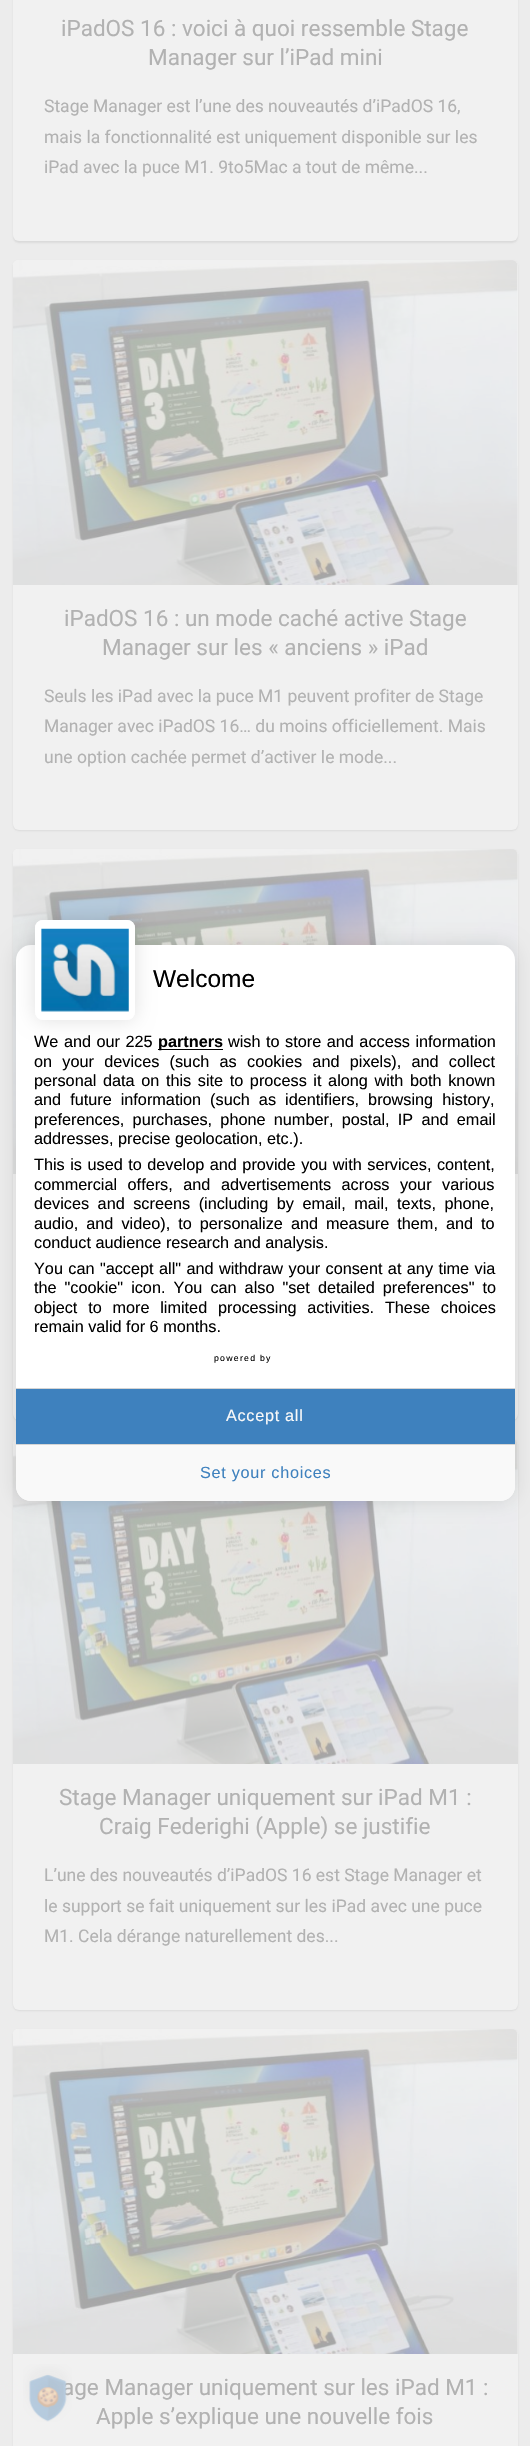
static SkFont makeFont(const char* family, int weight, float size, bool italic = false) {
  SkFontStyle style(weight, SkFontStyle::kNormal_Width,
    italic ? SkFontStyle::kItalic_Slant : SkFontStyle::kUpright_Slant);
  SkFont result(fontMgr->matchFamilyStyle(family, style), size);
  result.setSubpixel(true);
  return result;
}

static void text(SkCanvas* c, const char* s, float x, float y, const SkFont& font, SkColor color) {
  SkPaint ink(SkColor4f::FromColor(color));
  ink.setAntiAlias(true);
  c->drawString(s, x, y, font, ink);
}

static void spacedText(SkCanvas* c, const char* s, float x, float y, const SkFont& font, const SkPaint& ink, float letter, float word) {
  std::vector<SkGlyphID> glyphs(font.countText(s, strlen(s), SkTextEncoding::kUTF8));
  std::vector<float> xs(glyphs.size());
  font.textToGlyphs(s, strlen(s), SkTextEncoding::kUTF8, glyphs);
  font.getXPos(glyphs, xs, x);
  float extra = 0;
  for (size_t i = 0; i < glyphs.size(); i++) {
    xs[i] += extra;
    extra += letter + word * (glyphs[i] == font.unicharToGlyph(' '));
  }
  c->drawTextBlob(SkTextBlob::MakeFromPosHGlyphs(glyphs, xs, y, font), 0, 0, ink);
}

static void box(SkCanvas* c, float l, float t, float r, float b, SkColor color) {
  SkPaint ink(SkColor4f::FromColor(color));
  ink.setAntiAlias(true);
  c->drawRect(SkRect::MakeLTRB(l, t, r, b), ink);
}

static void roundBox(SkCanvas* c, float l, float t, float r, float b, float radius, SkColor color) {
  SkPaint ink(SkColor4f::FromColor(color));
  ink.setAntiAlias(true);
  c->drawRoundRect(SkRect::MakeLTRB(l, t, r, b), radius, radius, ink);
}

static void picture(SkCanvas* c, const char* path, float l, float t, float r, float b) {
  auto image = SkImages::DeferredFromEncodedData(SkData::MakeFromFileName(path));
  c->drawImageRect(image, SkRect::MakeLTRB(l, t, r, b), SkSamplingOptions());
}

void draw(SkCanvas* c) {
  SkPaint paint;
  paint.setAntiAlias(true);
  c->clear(0xffececec);
  paint.setColor(0x40a5a5a5);
  paint.setMaskFilter(SkMaskFilter::MakeBlur(kNormal_SkBlurStyle, 1));
  c->drawRoundRect(SkRect::MakeLTRB(13, -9, 518, 243), 6, 6, paint);
  paint.setMaskFilter(nullptr);
  roundBox(c, 13, -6, 518, 241, 6, 0xfff1f1f1);
  SkFont face1 = makeFont("Roboto", 400, 22.5f);
  text(c, "iPadOS 16 : voici à quoi ressemble Stage", 61, 36, face1, 0xffb2b2b2);
  text(c, "Manager sur l’iPad mini", 148, 65, face1, 0xffb2b2b2);
  SkFont face2 = makeFont("Roboto", 400, 17.5f);
  text(c, "Stage Manager est l’une des nouveautés d’iPadOS 16,", 44, 112, face2, 0xffb2b2b2);
  text(c, "mais la fonctionnalité est uniquement disponible sur les", 44, 143, face2, 0xffb2b2b2);
  text(c, "iPad avec la puce M1. 9to5Mac a tout de même...", 44, 173, face2, 0xffb2b2b2);
  paint.setMaskFilter(SkMaskFilter::MakeBlur(kNormal_SkBlurStyle, 1));
  c->drawRoundRect(SkRect::MakeLTRB(13, 261, 518, 831), 6, 6, paint);
  paint.setMaskFilter(nullptr);
  roundBox(c, 13, 260, 518, 830, 6, 0xfff1f1f1);
  picture(c, "img_01.png", 13, 260, 518, 585);
  text(c, "iPadOS 16 : un mode caché active Stage", 64, 626, face1, 0xffb2b2b2);
  text(c, "Manager sur les « anciens » iPad", 102, 655, face1, 0xffb2b2b2);
  text(c, "Seuls les iPad avec la puce M1 peuvent profiter de Stage", 44, 702, face2, 0xffb2b2b2);
  text(c, "Manager avec iPadOS 16… du moins officiellement. Mais", 44, 732, face2, 0xffb2b2b2);
  text(c, "une option cachée permet d’activer le mode...", 44, 763, face2, 0xffb2b2b2);
  paint.setMaskFilter(SkMaskFilter::MakeBlur(kNormal_SkBlurStyle, 1));
  c->drawRoundRect(SkRect::MakeLTRB(13, 850, 518, 1421), 6, 6, paint);
  paint.setMaskFilter(nullptr);
  roundBox(c, 13, 849, 518, 1420, 6, 0xfff1f1f1);
  picture(c, "img_02.png", 13, 849, 518, 1174);
  paint.setMaskFilter(SkMaskFilter::MakeBlur(kNormal_SkBlurStyle, 1));
  c->drawRoundRect(SkRect::MakeLTRB(13, 1440, 518, 2011), 6, 6, paint);
  paint.setMaskFilter(nullptr);
  roundBox(c, 13, 1439, 518, 2010, 6, 0xfff1f1f1);
  picture(c, "img_02.png", 13, 1439, 518, 1764);
  text(c, "Stage Manager uniquement sur iPad M1 :", 59, 1805, face1, 0xffb2b2b2);
  text(c, "Craig Federighi (Apple) se justifie", 99, 1834, face1, 0xffb2b2b2);
  text(c, "L’une des nouveautés d’iPadOS 16 est Stage Manager et", 44, 1881, face2, 0xffb2b2b2);
  text(c, "le support se fait uniquement sur les iPad avec une puce", 44, 1912, face2, 0xffb2b2b2);
  text(c, "M1. Cela dérange naturellement des...", 44, 1942, face2, 0xffb2b2b2);
  paint.setMaskFilter(SkMaskFilter::MakeBlur(kNormal_SkBlurStyle, 1));
  c->drawRoundRect(SkRect::MakeLTRB(13, 2030, 518, 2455), 6, 6, paint);
  paint.setMaskFilter(nullptr);
  roundBox(c, 13, 2029, 518, 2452, 6, 0xfff1f1f1);
  picture(c, "img_03.png", 13, 2029, 518, 2354);
  text(c, "age Manager uniquement sur les iPad M1 :", 62, 2395, face1, 0xffb2b2b2);
  text(c, "Apple s’explique une nouvelle fois", 96, 2424, face1, 0xffb2b2b2);
  paint.setColor(0x1f000000);
  paint.setMaskFilter(SkMaskFilter::MakeBlur(kNormal_SkBlurStyle, 9.5f));
  c->drawRoundRect(SkRect::MakeLTRB(16, 945, 515, 1501), 15, 15, paint);
  paint.setMaskFilter(nullptr);
  roundBox(c, 16, 945, 515, 1501, 15, 0xffffffff);
  box(c, 158, 1049, 223, 1050, 0xff000000);
  paint.setMaskFilter(SkMaskFilter::MakeBlur(kNormal_SkBlurStyle, 9.5f));
  c->drawRoundRect(SkRect::MakeLTRB(35, 920, 135, 1020), 8, 8, paint);
  paint.setMaskFilter(nullptr);
  roundBox(c, 35, 920, 135, 1020, 8, 0xffffffff);
  picture(c, "img_04.png", 41, 928, 129, 1012);
  paint.setStyle(SkPaint::kStroke_Style);
  paint.setStrokeWidth(6);
  paint.setColor(0xffffffff);
  c->drawRoundRect(SkRect::MakeLTRB(38, 923, 132, 1017), 5, 5, paint);
  SkFont face3 = makeFont("Liberation Sans", 400, 24.5f);
  text(c, "Welcome", 153, 987, face3, 0xff000000);
  SkFont face4 = makeFont("Liberation Sans", 400, 16.25f);
  paint.setStyle(SkPaint::kFill_Style);
  paint.setColor(0xff000000);
  spacedText(c, "We and our 225", 34, 1047, face4, paint, 0, 1);
  SkFont face5 = makeFont("Liberation Sans", 700, 16.25f);
  text(c, "partners", 158, 1047, face5, 0xff000000);
  spacedText(c, "wish to store and access information", 228, 1047, face4, paint, 0, 1);
  spacedText(c, "on your devices (such as cookies and pixels), and collect", 34, 1067, face4, paint, 0, 5.75f);
  spacedText(c, "personal data on this site to process it along with both known", 34, 1086, face4, paint, 0, 2.1f);
  spacedText(c, "and future information (such as identifiers, browsing history,", 34, 1105, face4, paint, 0, 4.5f);
  spacedText(c, "preferences, purchases, phone number, postal, IP and email", 34, 1125, face4, paint, 0, 3.75f);
  text(c, "addresses, precise geolocation, etc.).", 34, 1144, face4, 0xff000000);
  spacedText(c, "This is used to develop and provide you with services, content,", 34, 1170, face4, paint, 0, 1);
  spacedText(c, "commercial offers, and advertisements across your various", 34, 1190, face4, paint, 0, 6);
  spacedText(c, "devices and screens (including by email, mail, texts, phone,", 34, 1209, face4, paint, 0, 4);
  spacedText(c, "audio, and video), to personalize and measure them, and to", 34, 1229, face4, paint, 0, 3.5f);
  text(c, "conduct audience research and analysis.", 34, 1248, face4, 0xff000000);
  spacedText(c, "You can \"accept all\" and withdraw your consent at any time via", 34, 1274, face4, paint, 0, 0.9f);
  spacedText(c, "the \"cookie\" icon. You can also \"set detailed preferences\" to", 34, 1293, face4, paint, 0, 3.5f);
  spacedText(c, "object to more limited processing activities. These choices", 34, 1313, face4, paint, 0, 6.25f);
  text(c, "remain valid for 6 months.", 34, 1332, face4, 0xff000000);
  SkFont face6 = makeFont("Liberation Sans", 400, 8.75f);
  spacedText(c, "powered by", 214, 1361, face6, paint, 1.25f, 0);
  box(c, 16, 1389, 515, 1444, 0xff3e81be);
  box(c, 16, 1388, 515, 1389, 0xffd4d4d4);
  paint.setColor(0xfff9f9f9);
  spacedText(c, "Accept all", 226, 1421, face4, paint, 0.7f, 0);
  c->drawPath(SkPathBuilder().moveTo(16, 1444).lineTo(515, 1444).lineTo(515, 1486).cubicTo(515, 1494.5f, 508.5f, 1501, 500, 1501).lineTo(31, 1501).cubicTo(22.5f, 1501, 16, 1494.5f, 16, 1486).close().detach(), paint);
  box(c, 16, 1444, 515, 1445, 0xffd4d4d4);
  paint.setColor(0xff3e81be);
  spacedText(c, "Set your choices", 200, 1478, face4, paint, 0.7f, 0);
  picture(c, "img_05.png", 23, 2364, 72, 2422);
}
